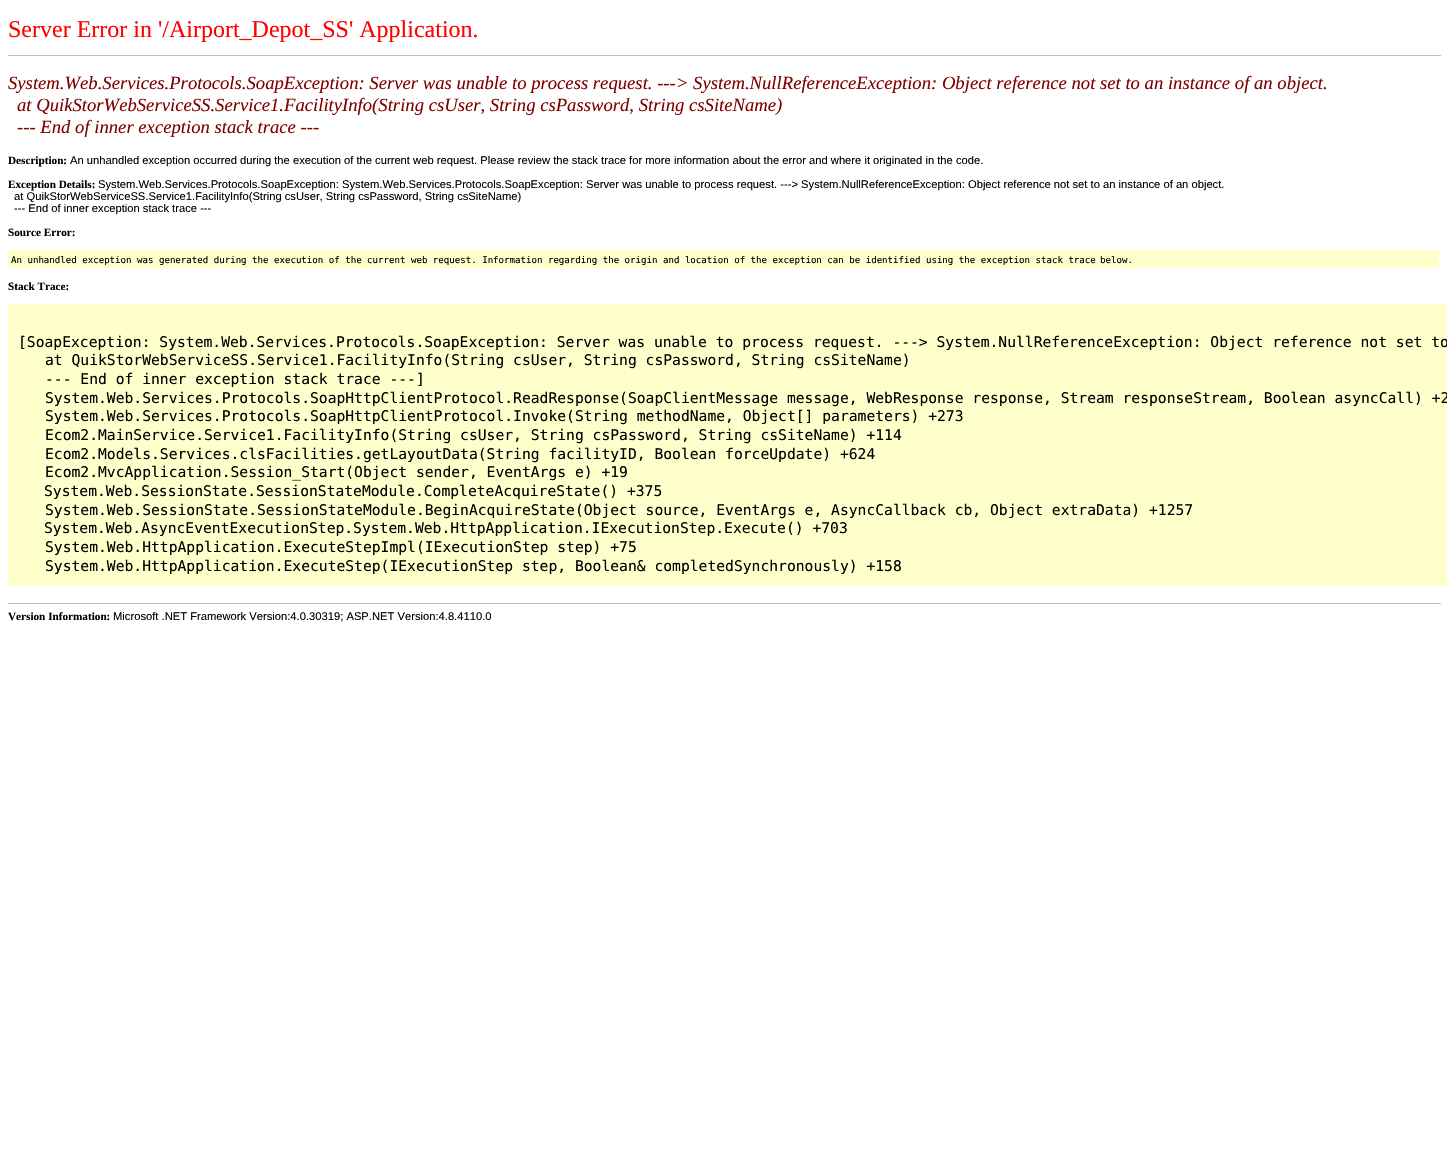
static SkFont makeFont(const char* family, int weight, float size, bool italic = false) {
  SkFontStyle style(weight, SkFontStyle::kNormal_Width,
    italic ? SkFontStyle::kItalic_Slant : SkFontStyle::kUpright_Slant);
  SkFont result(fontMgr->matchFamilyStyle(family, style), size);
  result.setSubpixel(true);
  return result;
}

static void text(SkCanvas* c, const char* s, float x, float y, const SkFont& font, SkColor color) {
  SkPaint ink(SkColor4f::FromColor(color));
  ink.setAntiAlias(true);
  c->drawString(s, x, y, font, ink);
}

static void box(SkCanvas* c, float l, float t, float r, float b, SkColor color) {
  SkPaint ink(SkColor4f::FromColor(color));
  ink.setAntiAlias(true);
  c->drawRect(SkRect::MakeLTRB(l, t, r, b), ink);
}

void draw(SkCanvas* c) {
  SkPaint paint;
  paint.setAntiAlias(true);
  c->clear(0xffffffff);
  SkFont face1 = makeFont("Liberation Serif", 400, 24);
  text(c, "Server Error in '/Airport_Depot_SS' Application.", 8, 37, face1, 0xffff0000);
  box(c, 8, 55, 1441, 56, 0xffc0c0c0);
  SkFont face2 = makeFont("Liberation Serif", 400, 18.67f, true);
  text(c, "System.Web.Services.Protocols.SoapException: Server was unable to process request. ---> System.NullReferenceException: Object reference not set to an instance of an object.", 8, 89, face2, 0xff800000);
  text(c, "at QuikStorWebServiceSS.Service1.FacilityInfo(String csUser, String csPassword, String csSiteName)", 17, 111, face2, 0xff800000);
  text(c, "--- End of inner exception stack trace ---", 17, 133, face2, 0xff800000);
  SkFont face3 = makeFont("Liberation Serif", 700, 11.2f);
  text(c, "Description:", 8, 164, face3, 0xff000000);
  SkFont face4 = makeFont("Liberation Sans", 400, 11.2f);
  text(c, "An unhandled exception occurred during the execution of the current web request. Please review the stack trace for more information about the error and where it originated in the code.", 70, 164, face4, 0xff000000);
  text(c, "Exception Details:", 8, 188, face3, 0xff000000);
  text(c, "System.Web.Services.Protocols.SoapException: System.Web.Services.Protocols.SoapException: Server was unable to process request. ---> System.NullReferenceException: Object reference not set to an instance of an object.", 98, 188, face4, 0xff000000);
  text(c, "at QuikStorWebServiceSS.Service1.FacilityInfo(String csUser, String csPassword, String csSiteName)", 14, 200, face4, 0xff000000);
  text(c, "--- End of inner exception stack trace ---", 14, 212, face4, 0xff000000);
  text(c, "Source Error:", 8, 236, face3, 0xff000000);
  box(c, 8, 250, 1439, 268, 0xffffffcc);
  SkFont face5 = makeFont("DejaVu Sans Mono", 400, 9.1f);
  text(c, "An unhandled exception was generated during the execution of the current web request. Information regarding the origin and location of the exception can be identified using the exception stack trace", 11, 263, face5, 0xff000000);
  text(c, "below.", 1100, 263, face5, 0xff000000);
  text(c, "Stack Trace:", 8, 290, face3, 0xff000000);
  box(c, 8, 304, 1447, 586, 0xffffffcc);
  SkFont face6 = makeFont("DejaVu Sans Mono", 400, 14.67f);
  text(c, "[SoapException: System.Web.Services.Protocols.SoapException: Server was unable to process request. ---> System.NullReferenceException: Object reference not set to", 18, 347, face6, 0xff000000);
  text(c, "at QuikStorWebServiceSS.Service1.FacilityInfo(String csUser, String csPassword, String csSiteName)", 45, 365, face6, 0xff000000);
  text(c, "--- End of inner exception stack trace ---]", 45, 384, face6, 0xff000000);
  text(c, "System.Web.Services.Protocols.SoapHttpClientProtocol.ReadResponse(SoapClientMessage message, WebResponse response, Stream responseStream, Boolean asyncCall) +2", 45, 403, face6, 0xff000000);
  text(c, "System.Web.Services.Protocols.SoapHttpClientProtocol.Invoke(String methodName, Object[] parameters) +273", 45, 421, face6, 0xff000000);
  text(c, "Ecom2.MainService.Service1.FacilityInfo(String csUser, String csPassword, String csSiteName) +114", 45, 440, face6, 0xff000000);
  text(c, "Ecom2.Models.Services.clsFacilities.getLayoutData(String facilityID, Boolean forceUpdate) +624", 45, 459, face6, 0xff000000);
  text(c, "Ecom2.MvcApplication.Session_Start(Object sender, EventArgs e) +19", 45, 477, face6, 0xff000000);
  text(c, "System.Web.SessionState.SessionStateModule.CompleteAcquireState() +375", 44, 496, face6, 0xff000000);
  text(c, "System.Web.SessionState.SessionStateModule.BeginAcquireState(Object source, EventArgs e, AsyncCallback cb, Object extraData) +1257", 45, 515, face6, 0xff000000);
  text(c, "System.Web.AsyncEventExecutionStep.System.Web.HttpApplication.IExecutionStep.Execute() +703", 44, 533, face6, 0xff000000);
  text(c, "System.Web.HttpApplication.ExecuteStepImpl(IExecutionStep step) +75", 45, 552, face6, 0xff000000);
  text(c, "System.Web.HttpApplication.ExecuteStep(IExecutionStep step, Boolean& completedSynchronously) +158", 45, 571, face6, 0xff000000);
  box(c, 8, 603, 1441, 604, 0xffc0c0c0);
  text(c, "Version Information:", 8, 620, face3, 0xff000000);
  text(c, "Microsoft .NET Framework Version:4.0.30319; ASP.NET Version:4.8.4110.0", 113, 620, face4, 0xff000000);
}
